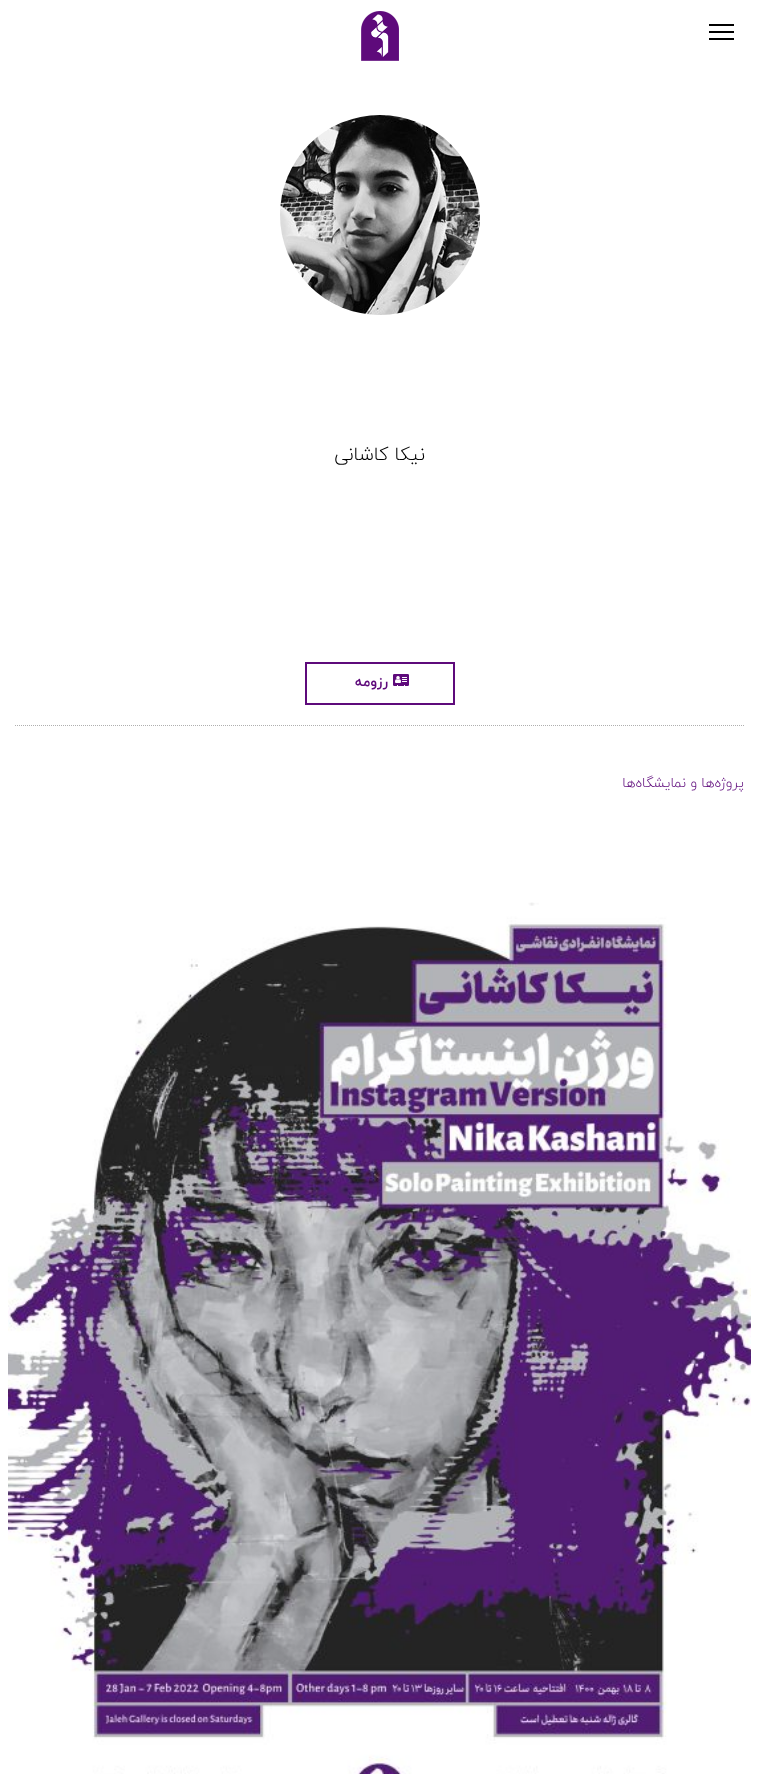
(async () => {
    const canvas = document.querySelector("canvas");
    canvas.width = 759;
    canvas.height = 1774;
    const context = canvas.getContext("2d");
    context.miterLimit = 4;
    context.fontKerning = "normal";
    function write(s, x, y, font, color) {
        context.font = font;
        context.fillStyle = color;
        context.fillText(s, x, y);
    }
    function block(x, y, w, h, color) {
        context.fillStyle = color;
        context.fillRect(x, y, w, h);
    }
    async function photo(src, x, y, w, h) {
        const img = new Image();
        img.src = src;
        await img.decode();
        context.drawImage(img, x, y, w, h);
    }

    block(0, 0, 759, 1774, "rgb(255, 255, 255)");
    block(709, 31, 25, 2, "rgb(0, 0, 0)");
    block(709, 24, 25, 2, "rgb(0, 0, 0)");
    block(709, 38, 25, 2, "rgb(0, 0, 0)");
    await photo("media/1.png", 361, 11, 38, 50);
    await photo("media/2.png", 280, 115, 200, 200);
    context.direction = "rtl";
    write("نیکا کاشانی", 425, 460, "300 19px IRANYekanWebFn", "rgb(0, 0, 0)");
    context.strokeStyle = "rgb(94, 10, 123)";
    context.lineWidth = 2;
    context.strokeRect(306, 663, 148, 41);
    await photo("media/3.png", 393, 674, 16, 12);
    write("رزومه", 388, 686, "bold 14px IRANYekanWebFn", "rgb(94, 10, 123)");
    context.beginPath();
    context.moveTo(15, 725.5);
    context.lineTo(744, 725.5);
    context.strokeStyle = "rgb(175, 175, 175)";
    context.lineWidth = 1;
    context.setLineDash([1, 1]);
    context.stroke();
    write("پروژه‌ها و نمایشگاه‌ها", 744, 787, "300 14px IRANYekanWebFn", "rgb(94, 10, 123)");
    await photo("media/4.png", 8, 902, 743, 872);
})();
